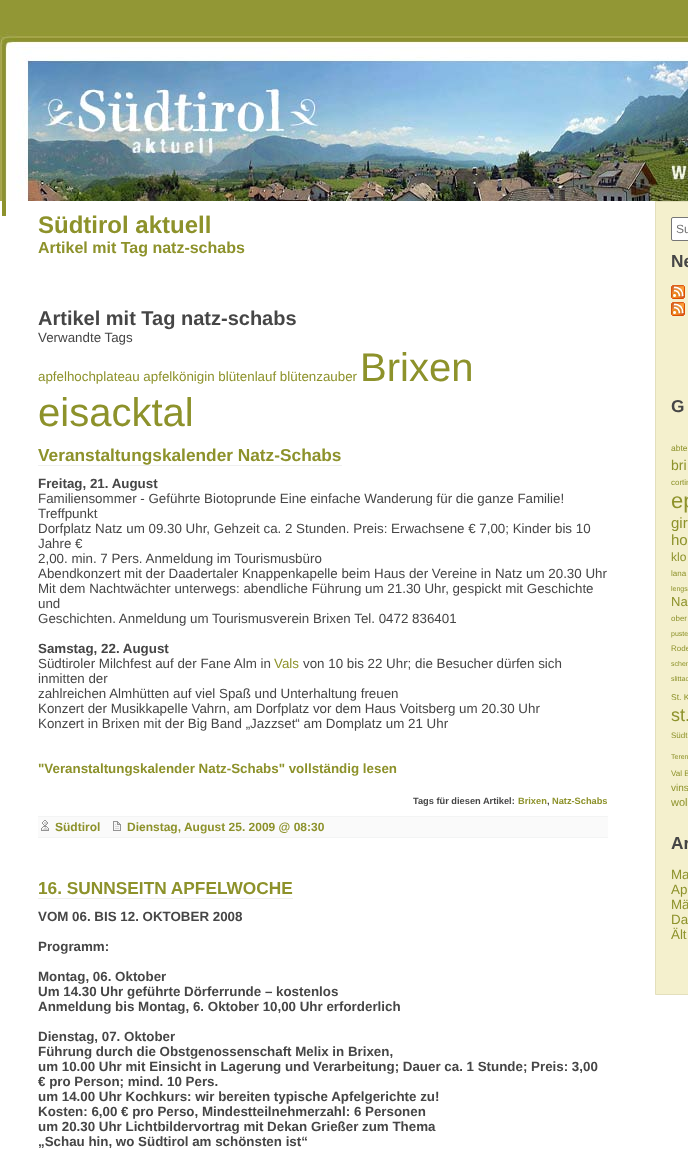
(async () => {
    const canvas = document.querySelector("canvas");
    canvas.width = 688;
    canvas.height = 1155;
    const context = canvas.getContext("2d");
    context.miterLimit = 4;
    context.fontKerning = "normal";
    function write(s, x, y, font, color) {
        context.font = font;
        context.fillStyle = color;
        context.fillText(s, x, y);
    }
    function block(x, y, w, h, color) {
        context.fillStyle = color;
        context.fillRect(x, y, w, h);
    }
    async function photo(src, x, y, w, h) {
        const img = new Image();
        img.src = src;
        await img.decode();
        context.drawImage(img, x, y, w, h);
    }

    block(0, 0, 688, 1155, "rgb(255, 255, 255)");
    block(0, 0, 688, 32, "rgb(146, 151, 53)");
    await photo("media/1.png", 0, 32, 688, 169);
    block(2, 201, 4, 15, "rgb(141, 146, 44)");
    write("Südtirol aktuell", 38, 233, "bold 24px Liberation Sans", "rgb(141, 146, 43)");
    write("Artikel mit Tag natz-schabs", 38, 253, "bold 16px Liberation Sans", "rgb(141, 146, 43)");
    write("Artikel mit Tag natz-schabs", 38, 325, "bold 20px Liberation Sans", "rgb(70, 70, 70)");
    write("Verwandte Tags", 38, 342, "13.35px Liberation Sans", "rgb(70, 70, 70)");
    write("apfelhochplateau apfelkönigin blütenlauf blütenzauber", 38, 381, "13.35px Liberation Sans", "rgb(141, 146, 43)");
    write("Brixen", 360, 381, "40px Liberation Sans", "rgb(141, 146, 43)");
    write("eisacktal", 38, 426, "40px Liberation Sans", "rgb(141, 146, 43)");
    write("Veranstaltungskalender Natz-Schabs", 38, 461, "bold 17.3px Liberation Sans", "rgb(141, 146, 43)");
    block(38, 465, 304, 1, "rgb(239, 239, 239)");
    write("Freitag, 21. August", 38, 488, "bold 13.35px Liberation Sans", "rgb(70, 70, 70)");
    write("Familiensommer - Geführte Biotoprunde Eine einfache Wanderung für die ganze Familie!", 38, 503, "13.35px Liberation Sans", "rgb(70, 70, 70)");
    write("Treffpunkt", 38, 518, "13.35px Liberation Sans", "rgb(70, 70, 70)");
    write("Dorfplatz Natz um 09.30 Uhr, Gehzeit ca. 2 Stunden. Preis: Erwachsene € 7,00; Kinder bis 10", 38, 533, "13.35px Liberation Sans", "rgb(70, 70, 70)");
    write("Jahre €", 38, 548, "13.35px Liberation Sans", "rgb(70, 70, 70)");
    write("2,00. min. 7 Pers. Anmeldung im Tourismusbüro", 38, 563, "13.35px Liberation Sans", "rgb(70, 70, 70)");
    write("Abendkonzert mit der Daadertaler Knappenkapelle beim Haus der Vereine in Natz um 20.30 Uhr", 38, 578, "13.35px Liberation Sans", "rgb(70, 70, 70)");
    write("Mit dem Nachtwächter unterwegs: abendliche Führung um 21.30 Uhr, gespickt mit Geschichte", 38, 593, "13.35px Liberation Sans", "rgb(70, 70, 70)");
    write("und", 38, 608, "13.35px Liberation Sans", "rgb(70, 70, 70)");
    write("Geschichten. Anmeldung um Tourismusverein Brixen Tel. 0472 836401", 38, 623, "13.35px Liberation Sans", "rgb(70, 70, 70)");
    write("Samstag, 22. August", 38, 653, "bold 13.35px Liberation Sans", "rgb(70, 70, 70)");
    write("Südtiroler Milchfest auf der Fane Alm in", 38, 668, "13.35px Liberation Sans", "rgb(70, 70, 70)");
    write("Vals", 274, 668, "13.35px Liberation Sans", "rgb(141, 146, 43)");
    write("von 10 bis 22 Uhr; die Besucher dürfen sich", 303, 668, "13.35px Liberation Sans", "rgb(70, 70, 70)");
    write("inmitten der", 38, 683, "13.35px Liberation Sans", "rgb(70, 70, 70)");
    write("zahlreichen Almhütten auf viel Spaß und Unterhaltung freuen", 38, 698, "13.35px Liberation Sans", "rgb(70, 70, 70)");
    write("Konzert der Musikkapelle Vahrn, am Dorfplatz vor dem Haus Voitsberg um 20.30 Uhr", 38, 713, "13.35px Liberation Sans", "rgb(70, 70, 70)");
    write("Konzert in Brixen mit der Big Band „Jazzset“ am Domplatz um 21 Uhr", 38, 728, "13.35px Liberation Sans", "rgb(70, 70, 70)");
    write("\"Veranstaltungskalender Natz-Schabs\" vollständig lesen", 38, 773, "bold 13.35px Liberation Sans", "rgb(141, 146, 43)");
    write("Tags für diesen Artikel:", 413, 804, "bold 9.25px Liberation Sans", "rgb(70, 70, 70)");
    write("Brixen", 518, 804, "bold 9.25px Liberation Sans", "rgb(141, 146, 43)");
    write(",", 547, 804, "bold 9.25px Liberation Sans", "rgb(70, 70, 70)");
    write("Natz-Schabs", 552, 804, "bold 9.25px Liberation Sans", "rgb(141, 146, 43)");
    block(38, 817, 570, 20, "rgb(250, 250, 250)");
    block(38, 816, 570, 1, "rgb(243, 244, 244)");
    block(38, 837, 570, 1, "rgb(243, 244, 244)");
    await photo("media/2.png", 41, 820, 8, 11);
    write("Südtirol", 55, 831, "bold 12px Liberation Sans", "rgb(141, 146, 43)");
    await photo("media/3.png", 113, 821, 8, 10);
    write("Dienstag, August 25. 2009 @ 08:30", 127, 831, "bold 12px Liberation Sans", "rgb(141, 146, 43)");
    write("16. SUNNSEITN APFELWOCHE", 38, 894, "bold 17.3px Liberation Sans", "rgb(141, 146, 43)");
    block(38, 898, 255, 1, "rgb(239, 239, 239)");
    write("VOM 06. BIS 12. OKTOBER 2008", 38, 921, "bold 13.35px Liberation Sans", "rgb(70, 70, 70)");
    write("Programm:", 38, 951, "bold 13.35px Liberation Sans", "rgb(70, 70, 70)");
    write("Montag, 06. Oktober", 38, 981, "bold 13.35px Liberation Sans", "rgb(70, 70, 70)");
    write("Um 14.30 Uhr geführte Dörferrunde – kostenlos", 38, 996, "bold 13.35px Liberation Sans", "rgb(70, 70, 70)");
    write("Anmeldung bis Montag, 6. Oktober 10,00 Uhr erforderlich", 38, 1011, "bold 13.35px Liberation Sans", "rgb(70, 70, 70)");
    write("Dienstag, 07. Oktober", 38, 1041, "bold 13.35px Liberation Sans", "rgb(70, 70, 70)");
    write("Führung durch die Obstgenossenschaft Melix in Brixen,", 38, 1056, "bold 13.35px Liberation Sans", "rgb(70, 70, 70)");
    write("um 10.00 Uhr mit Einsicht in Lagerung und Verarbeitung; Dauer ca. 1 Stunde; Preis: 3,00", 38, 1071, "bold 13.35px Liberation Sans", "rgb(70, 70, 70)");
    write("€ pro Person; mind. 10 Pers.", 38, 1086, "bold 13.35px Liberation Sans", "rgb(70, 70, 70)");
    write("um 14.00 Uhr Kochkurs: wir bereiten typische Apfelgerichte zu!", 38, 1101, "bold 13.35px Liberation Sans", "rgb(70, 70, 70)");
    write("Kosten: 6,00 € pro Perso, Mindestteilnehmerzahl: 6 Personen", 38, 1116, "bold 13.35px Liberation Sans", "rgb(70, 70, 70)");
    write("um 20.30 Uhr Lichtbildervortrag mit Dekan Grießer zum Thema", 38, 1131, "bold 13.35px Liberation Sans", "rgb(70, 70, 70)");
    write("„Schau hin, wo Südtirol am schönsten ist“", 38, 1146, "bold 13.35px Liberation Sans", "rgb(70, 70, 70)");
    context.fillStyle = "rgb(244, 240, 205)";
    context.beginPath();
    context.rect(655.5, 201.5, 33, 793);
    context.fill();
    context.strokeStyle = "rgb(227, 223, 188)";
    context.stroke();
    context.fillStyle = "rgb(255, 255, 255)";
    context.beginPath();
    context.roundRect(671.5, 217.5, 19, 23, 1.5);
    context.fill();
    context.strokeStyle = "rgb(118, 118, 118)";
    context.stroke();
    write("Su", 676, 233, "12px Liberation Sans", "rgb(113, 113, 113)");
    write("Ne", 671, 267, "bold 17.3px Liberation Sans", "rgb(70, 70, 70)");
    await photo("media/4.png", 671, 285, 14, 14);
    await photo("media/4.png", 671, 302, 14, 14);
    write("G", 671, 412, "bold 17.3px Liberation Sans", "rgb(70, 70, 70)");
    write("abte", 671, 451, "8.5px Liberation Sans", "rgb(141, 146, 43)");
    write("bri", 671, 470, "14px Liberation Sans", "rgb(141, 146, 43)");
    write("cortin", 671, 485, "8px Liberation Sans", "rgb(141, 146, 43)");
    write("ep", 671, 508, "22px Liberation Sans", "rgb(141, 146, 43)");
    write("gir", 671, 528, "15px Liberation Sans", "rgb(141, 146, 43)");
    write("ho", 671, 545, "15px Liberation Sans", "rgb(141, 146, 43)");
    write("klo", 671, 561, "12px Liberation Sans", "rgb(141, 146, 43)");
    write("lana", 671, 576, "8px Liberation Sans", "rgb(141, 146, 43)");
    write("lengs", 671, 591, "7px Liberation Sans", "rgb(141, 146, 43)");
    write("Na", 671, 606, "13px Liberation Sans", "rgb(141, 146, 43)");
    write("ober", 671, 621, "8px Liberation Sans", "rgb(141, 146, 43)");
    write("puste", 671, 636, "7px Liberation Sans", "rgb(141, 146, 43)");
    write("Rode", 671, 651, "8px Liberation Sans", "rgb(141, 146, 43)");
    write("schen", 671, 666, "7px Liberation Sans", "rgb(141, 146, 43)");
    write("slittad", 671, 681, "7px Liberation Sans", "rgb(141, 146, 43)");
    write("St. K", 671, 700, "8.5px Liberation Sans", "rgb(141, 146, 43)");
    write("st.", 671, 721, "18px Liberation Sans", "rgb(141, 146, 43)");
    write("Südt", 671, 738, "8px Liberation Sans", "rgb(141, 146, 43)");
    write("Teren", 671, 759, "7px Liberation Sans", "rgb(141, 146, 43)");
    write("Val B", 671, 776, "8px Liberation Sans", "rgb(141, 146, 43)");
    write("vins", 671, 791, "10px Liberation Sans", "rgb(141, 146, 43)");
    write("wol", 671, 806, "11px Liberation Sans", "rgb(141, 146, 43)");
    write("Ar", 671, 849, "bold 17.3px Liberation Sans", "rgb(70, 70, 70)");
    write("Ma", 671, 879, "13.35px Liberation Sans", "rgb(141, 146, 43)");
    write("Ap", 671, 894, "13.35px Liberation Sans", "rgb(141, 146, 43)");
    write("Mä", 671, 909, "13.35px Liberation Sans", "rgb(141, 146, 43)");
    write("Da", 671, 924, "13.35px Liberation Sans", "rgb(141, 146, 43)");
    write("Ält", 671, 939, "13.35px Liberation Sans", "rgb(141, 146, 43)");
})();
